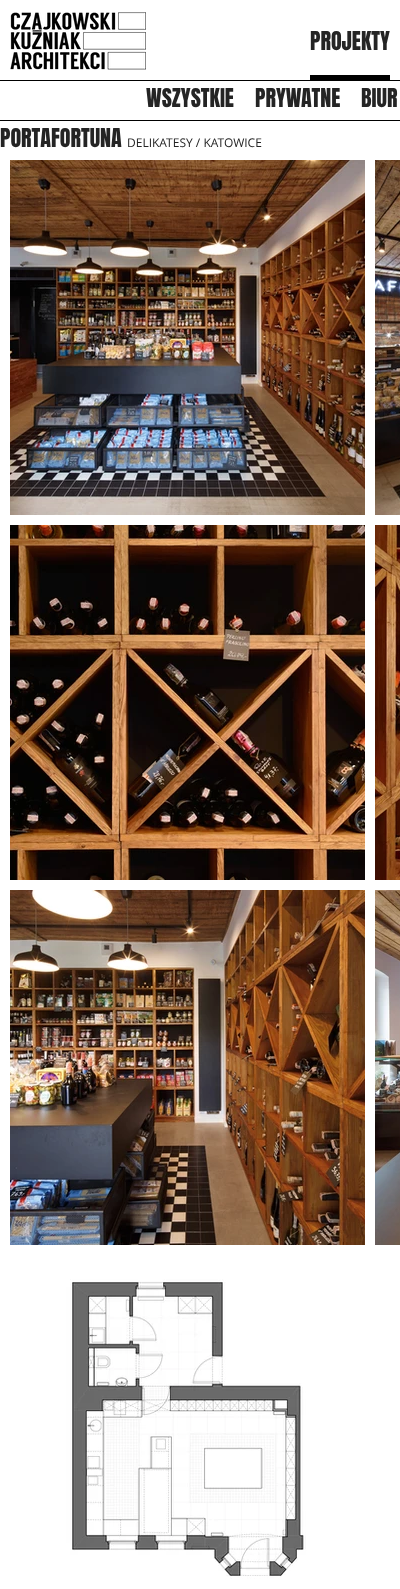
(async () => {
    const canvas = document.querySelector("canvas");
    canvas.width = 400;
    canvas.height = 1589;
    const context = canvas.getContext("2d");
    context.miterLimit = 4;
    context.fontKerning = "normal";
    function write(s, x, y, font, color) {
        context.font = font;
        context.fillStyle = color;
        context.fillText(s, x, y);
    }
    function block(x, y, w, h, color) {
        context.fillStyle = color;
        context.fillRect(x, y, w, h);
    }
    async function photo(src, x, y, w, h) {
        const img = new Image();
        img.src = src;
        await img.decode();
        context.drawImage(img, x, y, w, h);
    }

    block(0, 0, 400, 1589, "rgb(255, 255, 255)");
    await photo("media/1.png", 10, 12, 136, 58);
    write("PROJEKTY", 310, 50, "22px Anton", "rgb(36, 36, 36)");
    block(0, 80, 400, 1, "rgb(0, 0, 0)");
    block(310, 75, 80, 5, "rgb(0, 0, 0)");
    write("WSZYSTKIE", 146, 107, "22px Anton", "rgb(36, 36, 36)");
    write("PRYWATNE", 255, 107, "22px Anton", "rgb(36, 36, 36)");
    write("BIUR", 361, 107, "22px Anton", "rgb(36, 36, 36)");
    block(0, 120, 400, 1, "rgb(0, 0, 0)");
    write("PORTAFORTUNA", 0, 147, "22px Anton", "rgb(36, 36, 36)");
    write("DELIKATESY / KATOWICE", 127, 147, "12px Open Sans", "rgb(36, 36, 36)");
    await photo("media/2.png", 10, 160, 355, 355);
    await photo("media/3.png", 375, 160, 25, 355);
    await photo("media/4.png", 10, 525, 355, 355);
    await photo("media/5.png", 375, 525, 25, 355);
    await photo("media/6.png", 10, 890, 355, 355);
    await photo("media/7.png", 375, 890, 25, 355);
    await photo("media/8.png", 10, 1255, 355, 334);
})();
